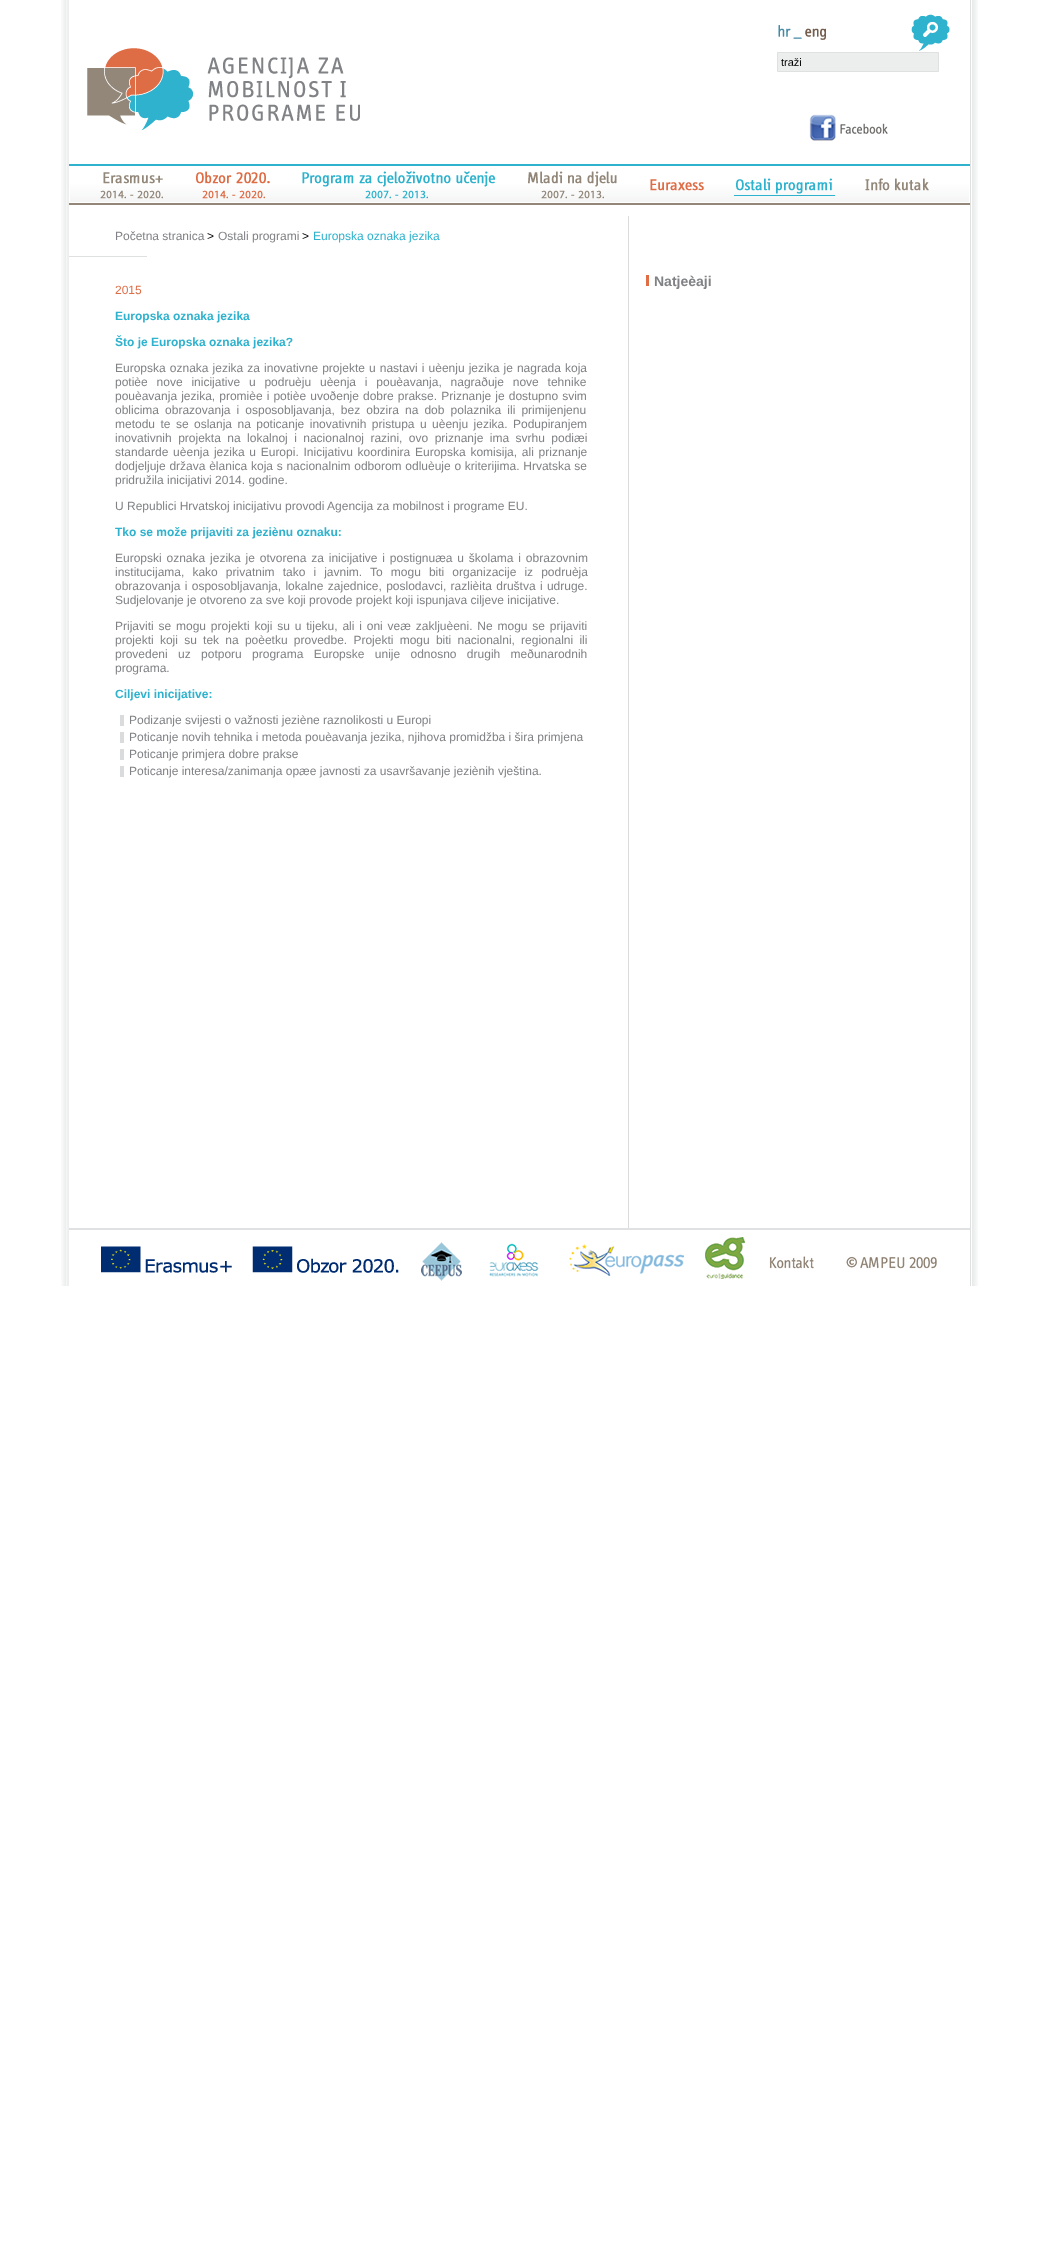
(async () => {
    const canvas = document.querySelector("canvas");
    canvas.width = 1038;
    canvas.height = 2247;
    const context = canvas.getContext("2d");
    context.miterLimit = 4;
    context.fontKerning = "normal";
    function write(s, x, y, font, color) {
        context.font = font;
        context.fillStyle = color;
        context.fillText(s, x, y);
    }
    function block(x, y, w, h, color) {
        context.fillStyle = color;
        context.fillRect(x, y, w, h);
    }
    async function photo(src, x, y, w, h) {
        const img = new Image();
        img.src = src;
        await img.decode();
        context.drawImage(img, x, y, w, h);
    }

    block(0, 0, 1038, 2247, "rgb(255, 255, 255)");
    await photo("media/1.png", 61, 0, 8, 1286);
    await photo("media/2.png", 87, 48, 273, 83);
    await photo("media/3.png", 778, 25, 24, 14);
    await photo("media/4.png", 805, 28, 21, 12);
    await photo("media/5.png", 911, 14, 39, 37);
    context.fillStyle = "rgb(236, 237, 237)";
    context.beginPath();
    context.rect(777.5, 52.5, 161, 19);
    context.fill();
    context.strokeStyle = "rgb(223, 224, 224)";
    context.stroke();
    write("traži", 781, 66, "11px Liberation Sans", "rgb(0, 0, 0)");
    await photo("media/6.png", 809, 114, 79, 27);
    await photo("media/7.png", 69, 164, 17, 41);
    await photo("media/8.png", 86, 164, 870, 41);
    await photo("media/9.png", 100, 172, 63, 27);
    await photo("media/10.png", 196, 171, 74, 28);
    await photo("media/11.png", 302, 171, 193, 28);
    await photo("media/12.png", 528, 171, 89, 28);
    await photo("media/13.png", 650, 179, 54, 12);
    await photo("media/14.png", 734, 178, 101, 18);
    await photo("media/15.png", 865, 178, 64, 13);
    await photo("media/16.png", 956, 164, 14, 41);
    write("Početna stranica", 115, 240, "12px Liberation Sans", "rgb(128, 130, 133)");
    write(">", 207, 240, "12px Liberation Sans", "rgb(0, 0, 0)");
    write("Ostali programi", 218, 240, "12px Liberation Sans", "rgb(128, 130, 133)");
    write(">", 302, 240, "12px Liberation Sans", "rgb(0, 0, 0)");
    write("Europska oznaka jezika", 313, 240, "12px Liberation Sans", "rgb(47, 178, 205)");
    block(69, 256, 78, 1, "rgb(223, 224, 224)");
    write("2015", 115, 294, "12px Liberation Sans", "rgb(222, 109, 70)");
    write("Europska oznaka jezika", 115, 320, "bold 12px Liberation Sans", "rgb(47, 178, 205)");
    write("Što je Europska oznaka jezika?", 115, 346, "bold 12px Liberation Sans", "rgb(47, 178, 205)");
    context.wordSpacing = "0.75px";
    write("Europska oznaka jezika za inovativne projekte u nastavi i uèenju jezika je nagrada koja", 115, 372, "12px Liberation Sans", "rgb(128, 130, 133)");
    context.wordSpacing = "5.5px";
    write("potièe nove inicijative u podruèju uèenja i pouèavanja, nagraðuje nove tehnike", 115, 386, "12px Liberation Sans", "rgb(128, 130, 133)");
    context.wordSpacing = "0.75px";
    write("pouèavanja jezika, promièe i potièe uvoðenje dobre prakse. Priznanje je dostupno svim", 115, 400, "12px Liberation Sans", "rgb(128, 130, 133)");
    context.wordSpacing = "2.75px";
    write("oblicima obrazovanja i osposobljavanja, bez obzira na dob polaznika ili primijenjenu", 115, 414, "12px Liberation Sans", "rgb(128, 130, 133)");
    context.wordSpacing = "2.1px";
    write("metodu te se oslanja na poticanje inovativnih pristupa u uèenju jezika. Podupiranjem", 115, 428, "12px Liberation Sans", "rgb(128, 130, 133)");
    context.wordSpacing = "3.1px";
    write("inovativnih projekta na lokalnoj i nacionalnoj razini, ovo priznanje ima svrhu podiæi", 115, 442, "12px Liberation Sans", "rgb(128, 130, 133)");
    context.wordSpacing = "1.4px";
    write("standarde uèenja jezika u Europi. Inicijativu koordinira Europska komisija, ali priznanje", 115, 456, "12px Liberation Sans", "rgb(128, 130, 133)");
    context.wordSpacing = "0.4px";
    write("dodjeljuje država èlanica koja s nacionalnim odborom odluèuje o kriterijima. Hrvatska se", 115, 470, "12px Liberation Sans", "rgb(128, 130, 133)");
    context.wordSpacing = "0px";
    write("pridružila inicijativi 2014. godine.", 115, 484, "12px Liberation Sans", "rgb(128, 130, 133)");
    write("U Republici Hrvatskoj inicijativu provodi Agencija za mobilnost i programe EU.", 115, 510, "12px Liberation Sans", "rgb(128, 130, 133)");
    write("Tko se može prijaviti za jeziènu oznaku:", 115, 536, "bold 12px Liberation Sans", "rgb(47, 178, 205)");
    context.wordSpacing = "1.5px";
    write("Europski oznaka jezika je otvorena za inicijative i postignuæa u školama i obrazovnim", 115, 562, "12px Liberation Sans", "rgb(128, 130, 133)");
    context.wordSpacing = "4.75px";
    write("institucijama, kako privatnim tako i javnim. To mogu biti organizacije iz podruèja", 115, 576, "12px Liberation Sans", "rgb(128, 130, 133)");
    context.wordSpacing = "1px";
    write("obrazovanja i osposobljavanja, lokalne zajednice, poslodavci, razlièita društva i udruge.", 115, 590, "12px Liberation Sans", "rgb(128, 130, 133)");
    context.wordSpacing = "0px";
    write("Sudjelovanje je otvoreno za sve koji provode projekt koji ispunjava ciljeve inicijative.", 115, 604, "12px Liberation Sans", "rgb(128, 130, 133)");
    context.wordSpacing = "1.5px";
    write("Prijaviti se mogu projekti koji su u tijeku, ali i oni veæ zakljuèeni. Ne mogu se prijaviti", 115, 630, "12px Liberation Sans", "rgb(128, 130, 133)");
    context.wordSpacing = "2.9px";
    write("projekti koji su tek na poèetku provedbe. Projekti mogu biti nacionalni, regionalni ili", 115, 644, "12px Liberation Sans", "rgb(128, 130, 133)");
    context.wordSpacing = "7px";
    write("provedeni uz potporu programa Europske unije odnosno drugih meðunarodnih", 115, 658, "12px Liberation Sans", "rgb(128, 130, 133)");
    context.wordSpacing = "0px";
    write("programa.", 115, 672, "12px Liberation Sans", "rgb(128, 130, 133)");
    write("Ciljevi inicijative:", 115, 698, "bold 12px Liberation Sans", "rgb(47, 178, 205)");
    block(120, 715, 4, 11, "rgb(217, 219, 220)");
    write("Podizanje svijesti o važnosti jeziène raznolikosti u Europi", 129, 724, "12px Liberation Sans", "rgb(128, 130, 133)");
    block(120, 732, 4, 11, "rgb(217, 219, 220)");
    write("Poticanje novih tehnika i metoda pouèavanja jezika, njihova promidžba i šira primjena", 129, 741, "12px Liberation Sans", "rgb(128, 130, 133)");
    block(120, 749, 4, 11, "rgb(217, 219, 220)");
    write("Poticanje primjera dobre prakse", 129, 758, "12px Liberation Sans", "rgb(128, 130, 133)");
    block(120, 766, 4, 11, "rgb(217, 219, 220)");
    write("Poticanje interesa/zanimanja opæe javnosti za usavršavanje jeziènih vještina.", 129, 775, "12px Liberation Sans", "rgb(128, 130, 133)");
    block(628, 216, 1, 1012, "rgb(217, 219, 220)");
    block(646, 275, 3, 11, "rgb(223, 110, 70)");
    write("Natjeèaji", 654, 286, "bold 14px Liberation Sans", "rgb(128, 130, 133)");
    block(69, 1228, 901, 2, "rgb(224, 225, 226)");
    await photo("media/17.png", 101, 1246, 131, 27);
    await photo("media/18.png", 252, 1246, 147, 27);
    await photo("media/19.png", 421, 1242, 41, 39);
    await photo("media/20.png", 489, 1243, 50, 34);
    await photo("media/21.png", 569, 1244, 115, 32);
    await photo("media/22.png", 705, 1237, 40, 42);
    await photo("media/23.png", 769, 1256, 45, 13);
    await photo("media/24.png", 846, 1256, 91, 13);
    await photo("media/25.png", 970, 0, 8, 1286);
})();
